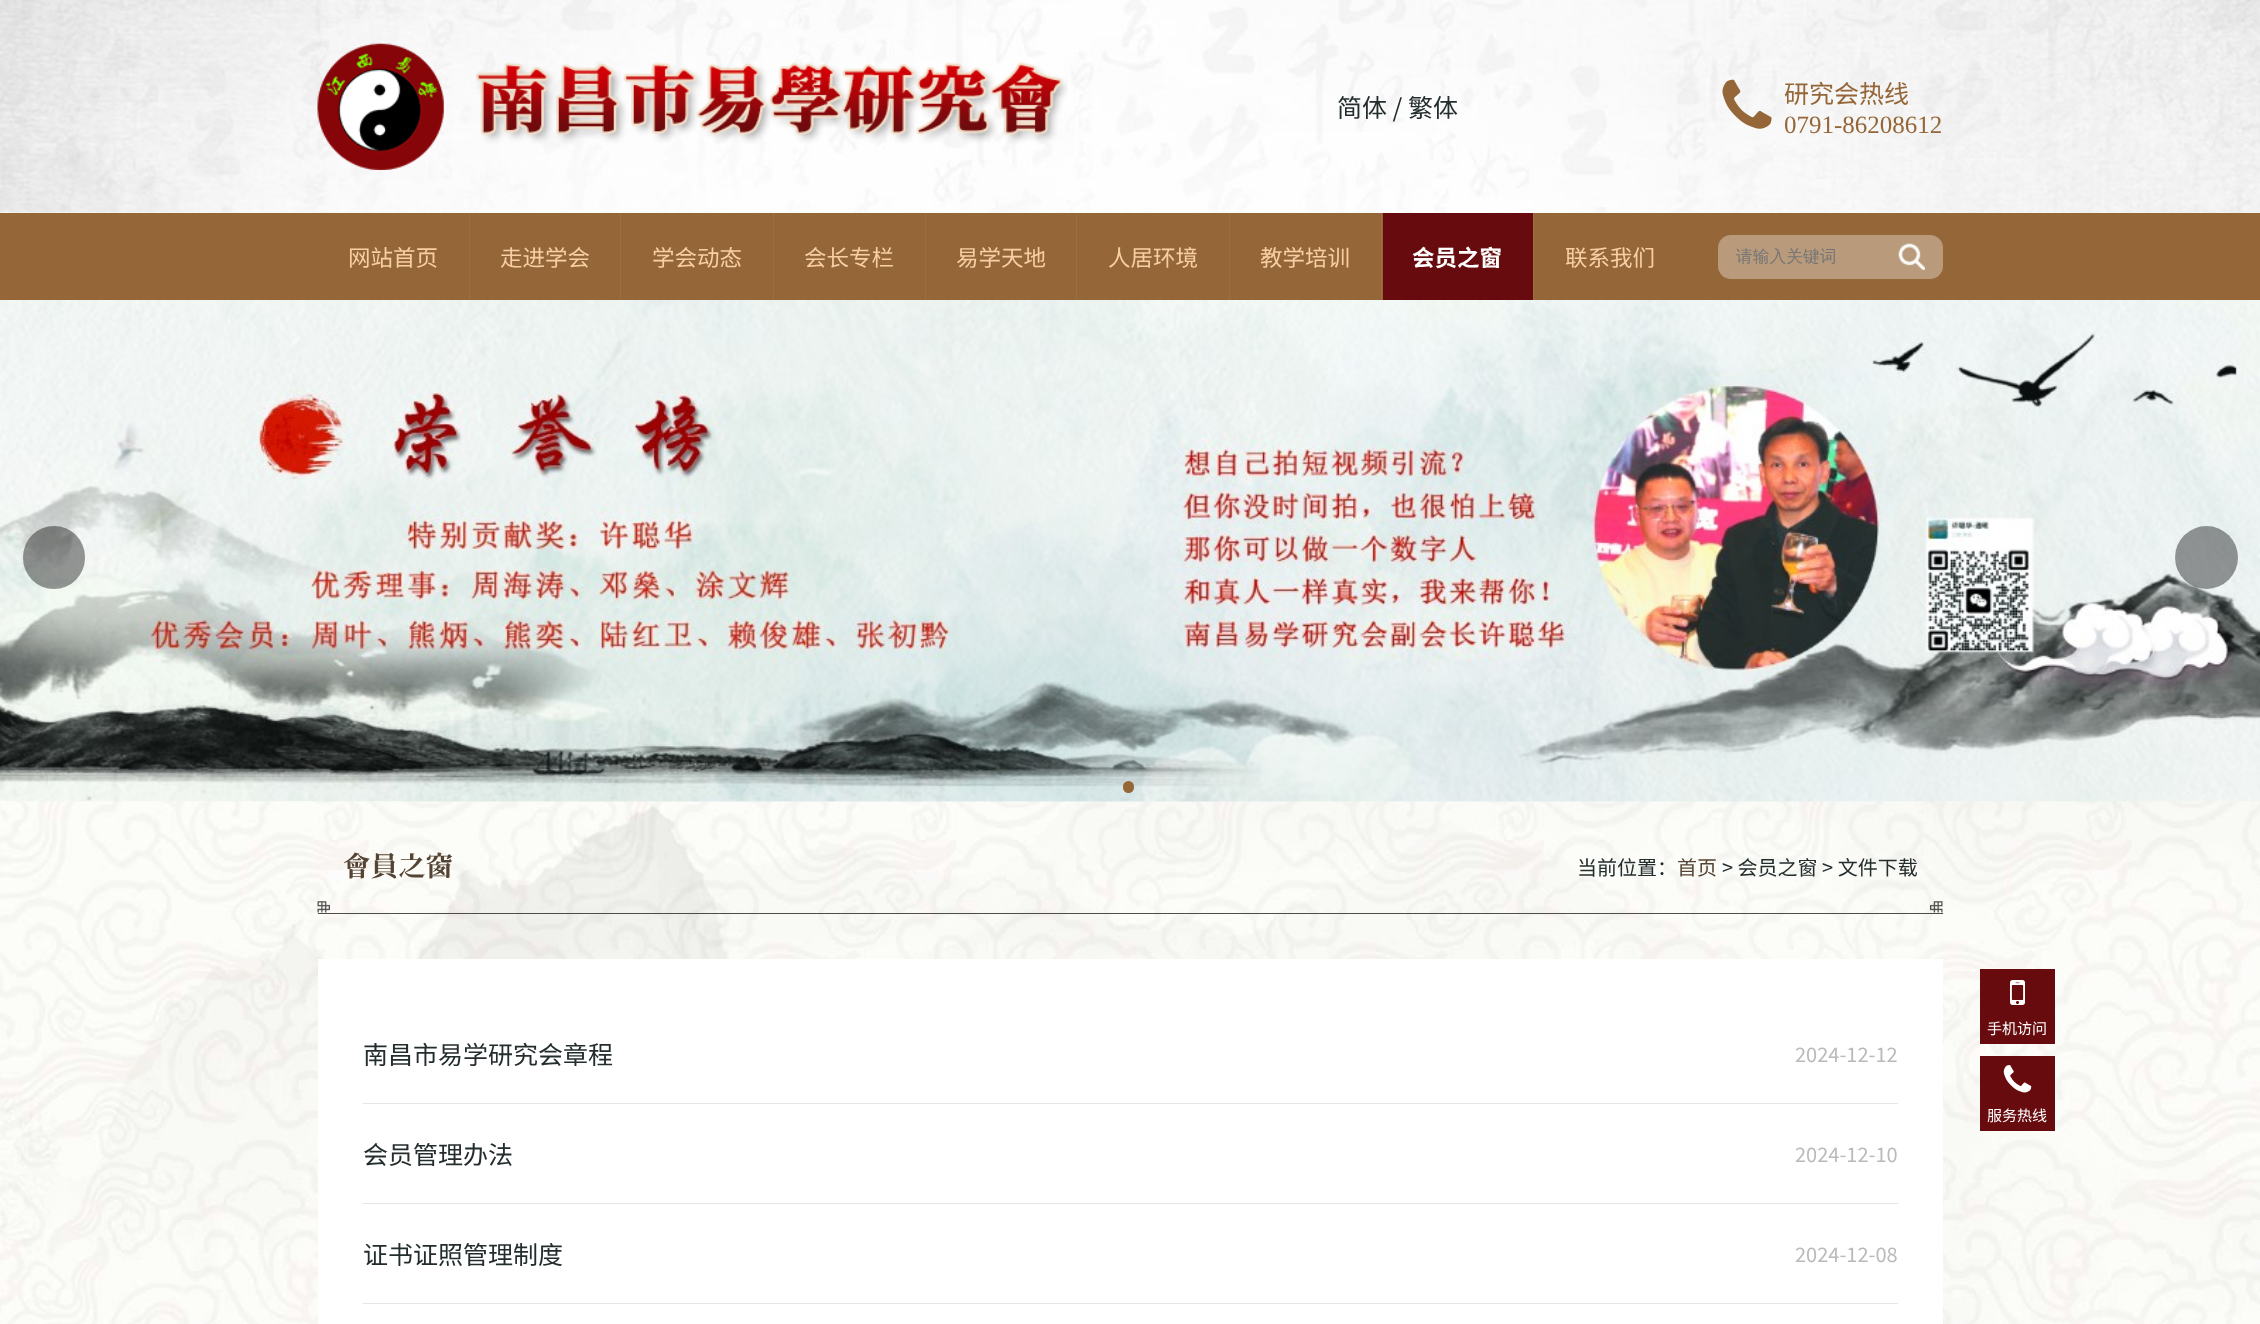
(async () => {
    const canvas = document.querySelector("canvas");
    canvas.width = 2260;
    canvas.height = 1324;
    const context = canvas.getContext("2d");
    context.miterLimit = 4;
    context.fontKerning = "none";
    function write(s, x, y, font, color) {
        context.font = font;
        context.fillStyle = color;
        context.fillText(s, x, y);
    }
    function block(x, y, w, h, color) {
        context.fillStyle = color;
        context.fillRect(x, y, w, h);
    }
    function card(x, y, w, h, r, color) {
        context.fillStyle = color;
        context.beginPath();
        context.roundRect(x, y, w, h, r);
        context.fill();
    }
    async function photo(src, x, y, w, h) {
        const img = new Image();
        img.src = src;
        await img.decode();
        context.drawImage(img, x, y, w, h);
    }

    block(0, 0, 2260, 1324, "rgb(255, 255, 255)");
    await photo("media/1.png", 0, 212, 2260, 1112);
    await photo("media/2.png", 0, 0, 2260, 213);
    await photo("media/3.png", 317, 43, 751, 127);
    write("简体 / 繁体", 1337, 117, "25px Noto Sans CJK SC", "rgb(36, 45, 46)");
    await photo("media/4.png", 1722, 79, 50, 50);
    write("研究会热线", 1784, 103, "25px Noto Sans CJK SC", "rgb(149, 103, 56)");
    write("0791-86208612", 1784, 133, "25px Liberation Serif", "rgb(149, 103, 56)");
    block(0, 213, 2260, 87, "rgb(149, 103, 56)");
    block(469, 213, 1, 87, "rgb(154, 111, 66)");
    write("网站首页", 348, 266, "22.5px Noto Sans CJK SC", "rgb(248, 207, 165)");
    block(620, 213, 1, 87, "rgb(154, 111, 66)");
    write("走进学会", 500, 266, "22.5px Noto Sans CJK SC", "rgb(248, 207, 165)");
    block(773, 213, 1, 87, "rgb(154, 111, 66)");
    write("学会动态", 652, 266, "22.5px Noto Sans CJK SC", "rgb(248, 207, 165)");
    block(925, 213, 1, 87, "rgb(154, 111, 66)");
    write("会长专栏", 804, 266, "22.5px Noto Sans CJK SC", "rgb(248, 207, 165)");
    block(1076, 213, 1, 87, "rgb(154, 111, 66)");
    write("易学天地", 956, 266, "22.5px Noto Sans CJK SC", "rgb(248, 207, 165)");
    block(1229, 213, 1, 87, "rgb(154, 111, 66)");
    write("人居环境", 1108, 266, "22.5px Noto Sans CJK SC", "rgb(248, 207, 165)");
    block(1381, 213, 1, 87, "rgb(154, 111, 66)");
    write("教学培训", 1260, 266, "22.5px Noto Sans CJK SC", "rgb(248, 207, 165)");
    block(1533, 213, 1, 87, "rgb(154, 111, 66)");
    block(1383, 213, 150, 87, "rgb(104, 11, 14)");
    write("会员之窗", 1412, 266, "bold 22.5px Noto Sans CJK SC", "rgb(255, 255, 255)");
    write("联系我们", 1565, 266, "22.5px Noto Sans CJK SC", "rgb(248, 207, 165)");
    card(1718, 235, 225, 44, 13, "rgb(185, 155, 124)");
    write("请输入关键词", 1736, 262, "500 16.75px WenQuanYi Zen Hei", "rgb(117, 117, 117)");
    await photo("media/5.png", 1898, 243, 27, 27);
    await photo("media/6.png", 0, 300, 2260, 502);
    await photo("media/7.png", 399, 801, 1412, 1);
    card(23, 526, 62, 63, 31, "rgba(0, 0, 0, 0.4)");
    context.beginPath();
    context.arc(2206.5, 557.5, 31.5, 0, Math.PI * 2);
    context.fill();
    card(1123, 781, 11, 12, 5.5, "rgb(149, 103, 56)");
    await photo("media/8.png", 317, 901, 1626, 12);
    block(318, 913, 1625, 1, "rgb(76, 76, 76)");
    write("会员之窗", 343, 876, "bold 27.5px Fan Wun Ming", "rgb(85, 68, 51)");
    write("当前位置：", 1577, 875, "20px Noto Sans CJK SC", "rgb(36, 45, 46)");
    write("首页", 1677, 875, "20px Noto Sans CJK SC", "rgb(85, 68, 51)");
    write("> 会员之窗 > 文件下载", 1722, 875, "20px Noto Sans CJK SC", "rgb(36, 45, 46)");
    block(318, 959, 1625, 365, "rgb(255, 255, 255)");
    block(363, 1103, 1535, 1, "rgb(230, 230, 230)");
    write("南昌市易学研究会章程", 363, 1064, "25px Noto Sans CJK SC", "rgb(36, 45, 46)");
    write("2024-12-12", 1795, 1062, "20px Noto Sans CJK SC", "rgb(186, 186, 186)");
    block(363, 1203, 1535, 1, "rgb(230, 230, 230)");
    write("会员管理办法", 363, 1164, "25px Noto Sans CJK SC", "rgb(36, 45, 46)");
    write("2024-12-10", 1795, 1162, "20px Noto Sans CJK SC", "rgb(186, 186, 186)");
    block(363, 1303, 1535, 1, "rgb(230, 230, 230)");
    write("证书证照管理制度", 363, 1264, "25px Noto Sans CJK SC", "rgb(36, 45, 46)");
    write("2024-12-08", 1795, 1262, "20px Noto Sans CJK SC", "rgb(186, 186, 186)");
    block(1980, 969, 75, 75, "rgb(104, 11, 14)");
    await photo("media/9.png", 2010, 980, 15, 25);
    write("手机访问", 1987, 1034, "15px Noto Sans CJK SC", "rgb(255, 255, 255)");
    block(1980, 1056, 75, 75, "rgb(104, 11, 14)");
    await photo("media/10.png", 2003, 1065, 29, 28);
    write("服务热线", 1987, 1121, "15px Noto Sans CJK SC", "rgb(255, 255, 255)");
})();
